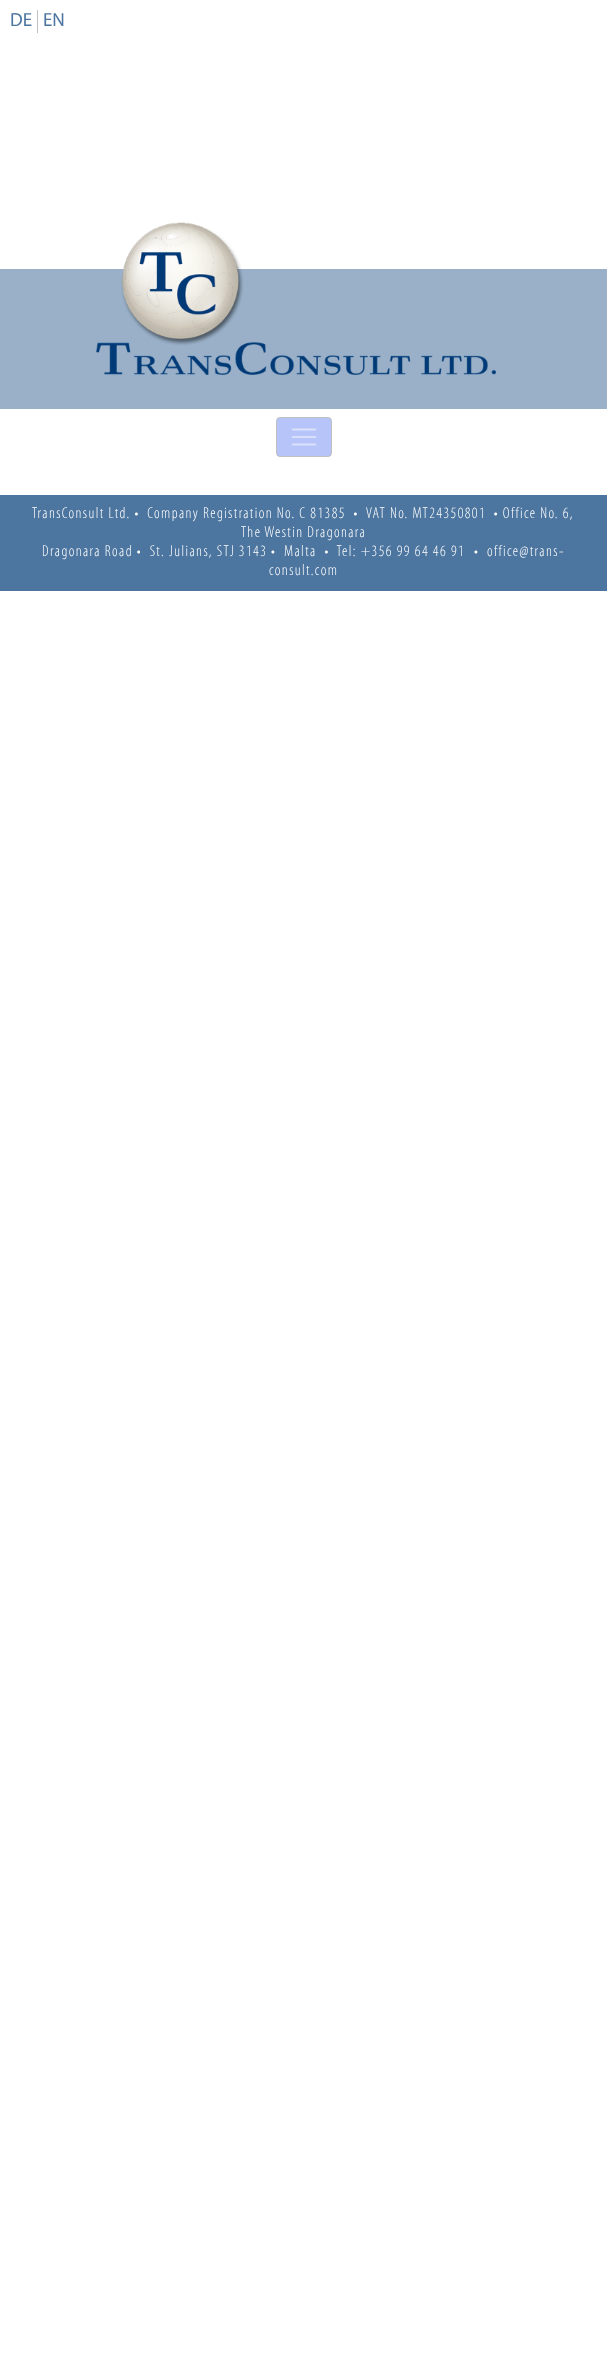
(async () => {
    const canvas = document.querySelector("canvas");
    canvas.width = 607;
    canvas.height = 2373;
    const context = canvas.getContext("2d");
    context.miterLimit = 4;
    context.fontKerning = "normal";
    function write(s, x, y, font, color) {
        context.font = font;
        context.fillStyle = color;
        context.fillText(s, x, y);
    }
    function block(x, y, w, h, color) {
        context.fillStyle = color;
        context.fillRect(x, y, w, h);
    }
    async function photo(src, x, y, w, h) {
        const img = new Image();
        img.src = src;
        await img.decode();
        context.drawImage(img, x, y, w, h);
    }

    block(0, 0, 607, 2373, "rgb(255, 255, 255)");
    block(37, 10, 1, 23, "rgb(192, 192, 192)");
    write("DE", 10, 26, "19px Myriad", "rgb(76, 117, 159)");
    write("EN", 43, 26, "19px Myriad", "rgb(76, 117, 159)");
    block(0, 269, 607, 140, "rgb(153, 176, 200)");
    await photo("media/1.png", 96, 222, 400, 153);
    context.fillStyle = "rgb(183, 196, 249)";
    context.beginPath();
    context.roundRect(276.5, 417.5, 55, 39, 3.5);
    context.fill();
    context.strokeStyle = "rgb(192, 192, 192)";
    context.stroke();
    await photo("media/2.png", 291, 428, 26, 18);
    block(0, 495, 607, 96, "rgb(76, 117, 159)");
    context.letterSpacing = "1.4px";
    write("TransConsult Ltd. •  Company Registration No. C 81385  •  VAT No. MT24350801  • Office No. 6,", 32, 518, "300 15.85px Myriad", "rgb(255, 255, 255)");
    write("The Westin Dragonara", 241, 537, "300 15.85px Myriad", "rgb(255, 255, 255)");
    write("Dragonara Road •  St. Julians, STJ 3143 •  Malta  •  Tel: +356 99 64 46 91", 42, 556, "300 15.85px Myriad", "rgb(255, 255, 255)");
    write("•", 474, 556, "300 15.85px Myriad", "rgb(255, 255, 255)");
    write("office@trans-", 487, 556, "300 15.85px Myriad", "rgb(255, 255, 255)");
    write("consult.com", 269, 575, "300 15.85px Myriad", "rgb(255, 255, 255)");
})();
